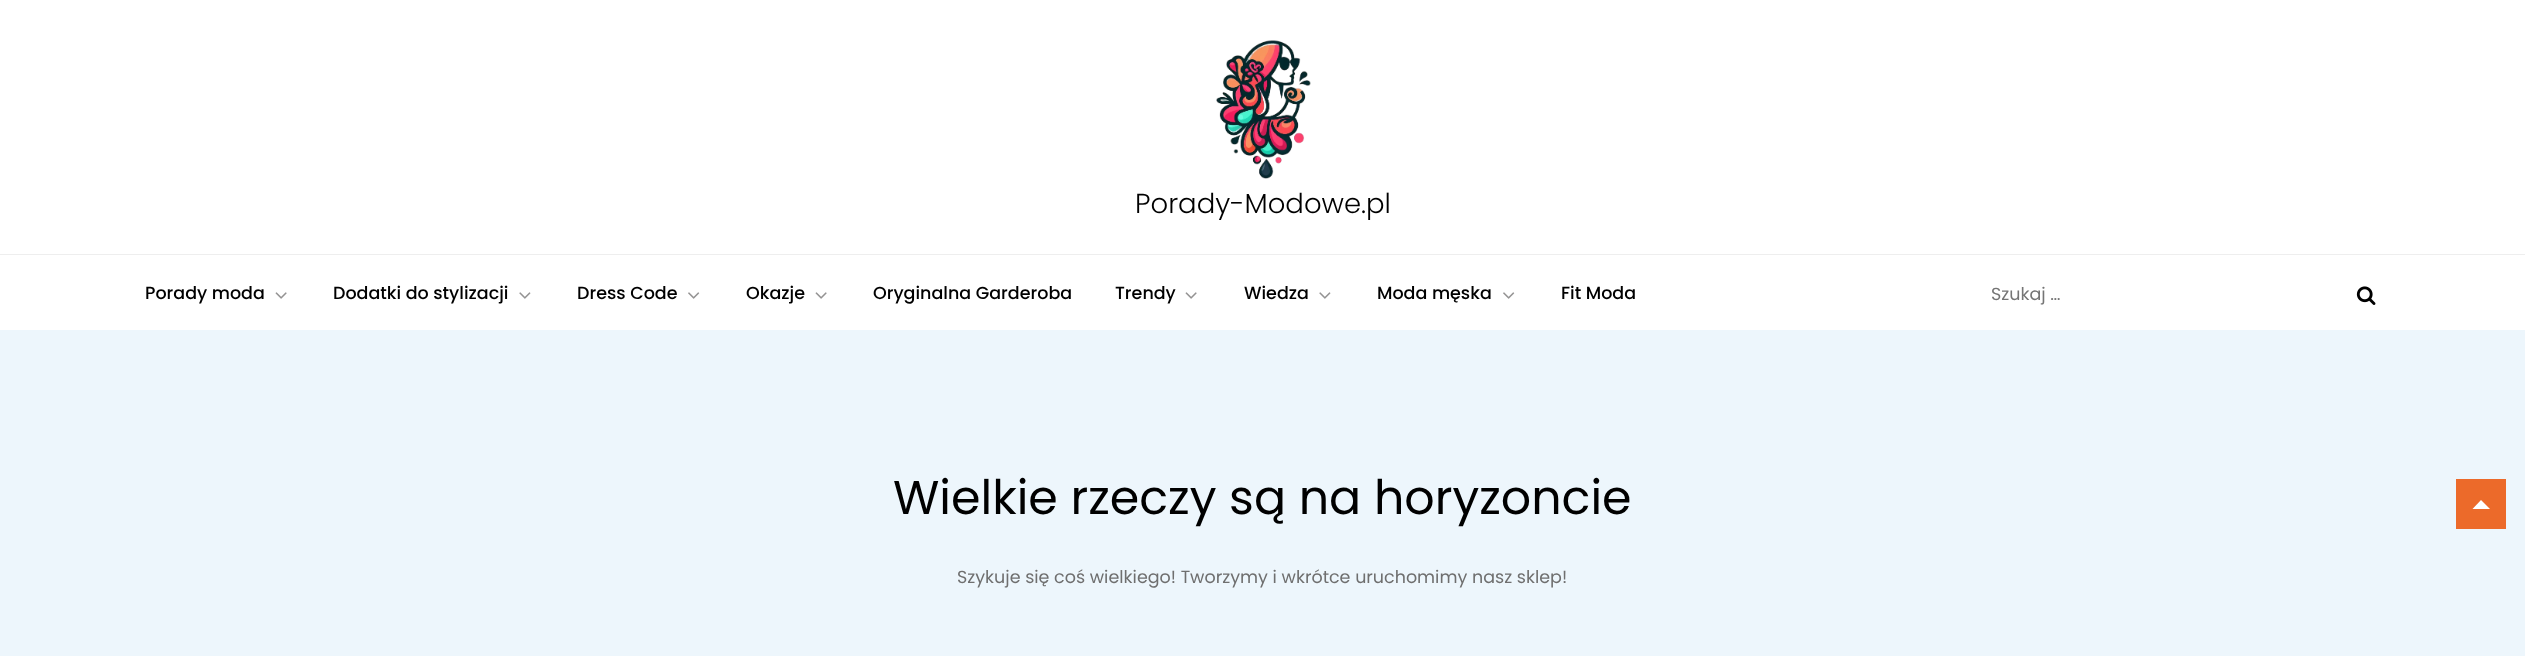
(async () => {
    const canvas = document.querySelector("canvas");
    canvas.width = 2525;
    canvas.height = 656;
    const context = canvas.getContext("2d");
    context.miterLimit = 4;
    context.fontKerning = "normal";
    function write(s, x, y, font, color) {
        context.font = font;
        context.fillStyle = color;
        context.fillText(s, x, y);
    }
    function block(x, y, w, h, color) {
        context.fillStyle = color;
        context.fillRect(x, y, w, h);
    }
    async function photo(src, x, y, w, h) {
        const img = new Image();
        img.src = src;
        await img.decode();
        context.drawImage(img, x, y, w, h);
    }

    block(0, 0, 2525, 656, "rgb(237, 246, 252)");
    block(0, 0, 2525, 330, "rgb(255, 255, 255)");
    block(0, 254, 2525, 1, "rgb(238, 238, 238)");
    await photo("media/1.png", 1216, 40, 95, 139);
    write("Porady-Modowe.pl", 1135, 213, "300 27.5px Poppins", "rgb(0, 0, 0)");
    write("Porady moda", 145, 299, "500 17.5px Poppins", "rgb(0, 0, 0)");
    await photo("media/2.png", 275, 292, 12, 7);
    write("Dodatki do stylizacji", 333, 299, "500 17.5px Poppins", "rgb(0, 0, 0)");
    await photo("media/3.png", 519, 292, 12, 7);
    write("Dress Code", 577, 299, "500 17.5px Poppins", "rgb(0, 0, 0)");
    await photo("media/4.png", 688, 292, 12, 7);
    write("Okazje", 746, 299, "500 17.5px Poppins", "rgb(0, 0, 0)");
    await photo("media/2.png", 815, 292, 12, 7);
    write("Oryginalna Garderoba", 873, 299, "500 17.5px Poppins", "rgb(0, 0, 0)");
    write("Trendy", 1115, 299, "500 17.5px Poppins", "rgb(0, 0, 0)");
    await photo("media/2.png", 1185, 292, 12, 7);
    write("Wiedza", 1244, 299, "500 17.5px Poppins", "rgb(0, 0, 0)");
    await photo("media/3.png", 1319, 292, 12, 7);
    write("Moda męska", 1377, 299, "500 17.5px Poppins", "rgb(0, 0, 0)");
    await photo("media/4.png", 1503, 292, 12, 7);
    write("Fit Moda", 1561, 299, "500 17.5px Poppins", "rgb(0, 0, 0)");
    write("Szukaj …", 1991, 300, "17.5px Poppins", "rgb(117, 117, 117)");
    await photo("media/5.png", 2356, 286, 20, 19);
    write("Wielkie rzeczy są na horyzoncie", 893, 514, "47.5px Poppins", "rgb(0, 0, 0)");
    write("Szykuje się coś wielkiego! Tworzymy i wkrótce uruchomimy nasz sklep!", 957, 583, "17.5px Poppins", "rgb(111, 111, 111)");
    block(2456, 479, 50, 50, "rgb(236, 106, 42)");
    context.fillStyle = "rgb(255, 255, 255)";
    context.beginPath();
    context.moveTo(2490, 509);
    context.lineTo(2472.5, 509);
    context.lineTo(2481, 500);
    context.closePath();
    context.fill();
})();
